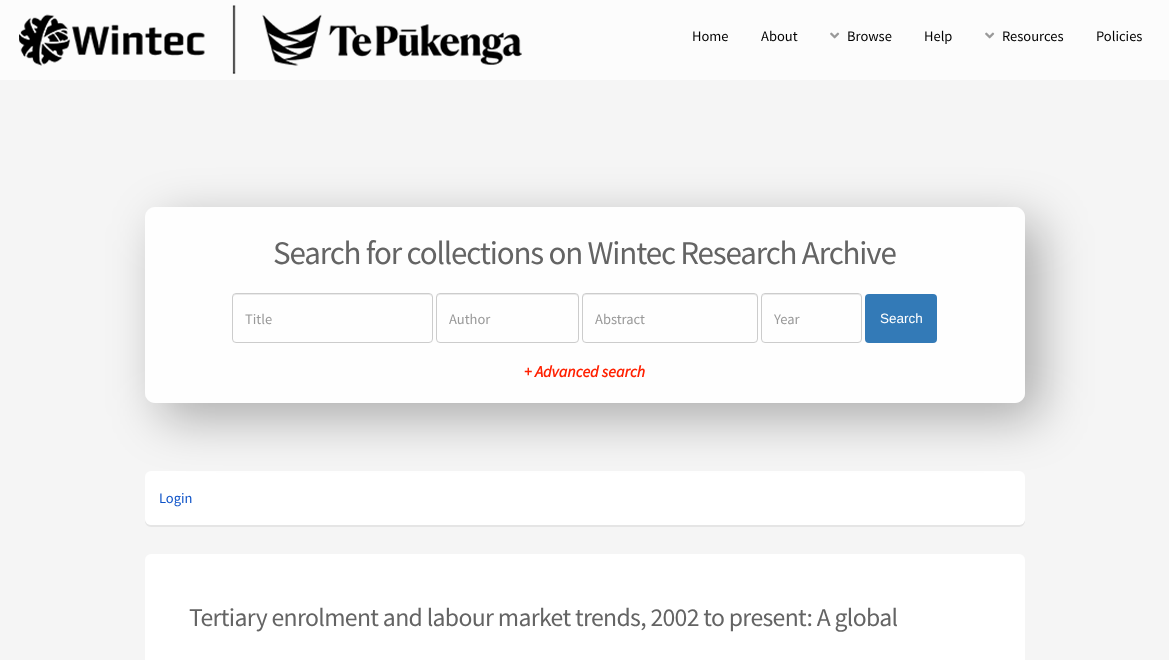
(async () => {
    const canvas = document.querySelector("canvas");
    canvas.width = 1169;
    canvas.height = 660;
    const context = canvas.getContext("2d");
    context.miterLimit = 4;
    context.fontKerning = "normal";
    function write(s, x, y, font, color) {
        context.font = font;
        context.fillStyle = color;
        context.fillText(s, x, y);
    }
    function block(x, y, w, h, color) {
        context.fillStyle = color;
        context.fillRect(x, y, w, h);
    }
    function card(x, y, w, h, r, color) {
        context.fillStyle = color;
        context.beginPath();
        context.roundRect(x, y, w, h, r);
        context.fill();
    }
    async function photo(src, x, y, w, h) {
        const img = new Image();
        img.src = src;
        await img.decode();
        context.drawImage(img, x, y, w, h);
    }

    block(0, 0, 1169, 660, "rgb(245, 245, 245)");
    block(0, 0, 1169, 80, "rgb(252, 252, 252)");
    await photo("media/1.png", 19, 5, 503, 69);
    write("Home", 692, 41, "14.5px Source Sans Pro", "rgb(0, 0, 0)");
    write("About", 761, 41, "14.5px Source Sans Pro", "rgb(0, 0, 0)");
    await photo("media/2.png", 830, 32, 10, 7);
    write("Browse", 847, 41, "14.5px Source Sans Pro", "rgb(0, 0, 0)");
    write("Help", 924, 41, "14.5px Source Sans Pro", "rgb(0, 0, 0)");
    await photo("media/2.png", 985, 32, 10, 7);
    write("Resources", 1002, 41, "14.5px Source Sans Pro", "rgb(0, 0, 0)");
    write("Policies", 1096, 41, "14.5px Source Sans Pro", "rgb(0, 0, 0)");
    context.fillStyle = "rgb(229, 229, 229)";
    context.beginPath();
    context.moveTo(145, 519);
    context.lineTo(145, 521);
    context.bezierCurveTo(145, 524, 148, 527, 151, 527);
    context.lineTo(1019, 527);
    context.bezierCurveTo(1022, 527, 1025, 524, 1025, 521);
    context.lineTo(1025, 519);
    context.bezierCurveTo(1025, 522, 1022, 525, 1019, 525);
    context.lineTo(151, 525);
    context.bezierCurveTo(148, 525, 145, 522, 145, 519);
    context.closePath();
    context.fill();
    card(145, 471, 880, 54, 6, "rgb(255, 255, 255)");
    context.save();
    context.beginPath();
    context.moveTo(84, 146);
    context.lineTo(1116, 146);
    context.lineTo(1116, 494);
    context.lineTo(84, 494);
    context.closePath();
    context.moveTo(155, 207);
    context.lineTo(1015, 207);
    context.bezierCurveTo(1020.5, 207, 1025, 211.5, 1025, 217);
    context.lineTo(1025, 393);
    context.bezierCurveTo(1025, 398.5, 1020.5, 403, 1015, 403);
    context.lineTo(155, 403);
    context.bezierCurveTo(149.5, 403, 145, 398.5, 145, 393);
    context.lineTo(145, 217);
    context.bezierCurveTo(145, 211.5, 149.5, 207, 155, 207);
    context.closePath();
    context.clip("evenodd");
    context.fillStyle = "rgba(0, 0, 0, 0.3)";
    context.filter = "blur(25px)";
    context.beginPath();
    context.roundRect(160, 222, 880, 196, 10);
    context.fill();
    context.filter = "none";
    context.restore();
    card(145, 207, 880, 196, 10, "rgba(255, 255, 255, 0.85)");
    context.letterSpacing = "-1.15px";
    write("Search for collections on Wintec Research Archive", 273, 264, "33px Source Sans Pro", "rgb(100, 100, 100)");
    context.fillStyle = "rgb(234, 234, 234)";
    context.beginPath();
    context.moveTo(236, 295);
    context.lineTo(429, 295);
    context.bezierCurveTo(431, 295, 432, 297, 432, 298);
    context.bezierCurveTo(432, 296, 431, 294, 429, 294);
    context.lineTo(236, 294);
    context.bezierCurveTo(234, 294, 233, 296, 233, 298);
    context.bezierCurveTo(233, 297, 234, 295, 236, 295);
    context.closePath();
    context.fill();
    context.beginPath();
    context.roundRect(232.5, 293.5, 200, 49, 3.5);
    context.strokeStyle = "rgb(204, 204, 204)";
    context.stroke();
    context.letterSpacing = "0px";
    write("Title", 245, 324, "14.5px Source Sans Pro", "rgb(153, 153, 153)");
    context.fillStyle = "rgb(234, 234, 234)";
    context.beginPath();
    context.moveTo(440, 295);
    context.lineTo(575, 295);
    context.bezierCurveTo(577, 295, 578, 297, 578, 298);
    context.lineTo(578, 297);
    context.bezierCurveTo(578, 295, 577, 294, 575, 294);
    context.lineTo(440, 294);
    context.bezierCurveTo(438, 294, 437, 295, 437, 297);
    context.lineTo(437, 298);
    context.bezierCurveTo(437, 297, 438, 295, 440, 295);
    context.closePath();
    context.fill();
    context.beginPath();
    context.roundRect(436.5, 293.5, 142, 49, 3.5);
    context.stroke();
    write("Author", 449, 324, "14.5px Source Sans Pro", "rgb(153, 153, 153)");
    context.fillStyle = "rgb(234, 234, 234)";
    context.beginPath();
    context.moveTo(586, 295);
    context.lineTo(754, 295);
    context.bezierCurveTo(756, 295, 757, 297, 757, 298);
    context.lineTo(757, 297);
    context.bezierCurveTo(757, 295, 756, 294, 754, 294);
    context.lineTo(586, 294);
    context.bezierCurveTo(584, 294, 583, 295, 583, 297);
    context.lineTo(583, 298);
    context.bezierCurveTo(583, 297, 584, 295, 586, 295);
    context.closePath();
    context.fill();
    context.beginPath();
    context.roundRect(582.5, 293.5, 175, 49, 3.5);
    context.stroke();
    write("Abstract", 595, 324, "14.5px Source Sans Pro", "rgb(153, 153, 153)");
    context.fillStyle = "rgb(234, 234, 234)";
    context.beginPath();
    context.moveTo(765, 295);
    context.lineTo(858, 295);
    context.bezierCurveTo(860, 295, 861, 297, 861, 298);
    context.bezierCurveTo(861, 290, 845, 294, 842, 294);
    context.lineTo(780, 294);
    context.bezierCurveTo(778, 294, 762, 290, 762, 298);
    context.bezierCurveTo(762, 297, 763, 295, 765, 295);
    context.closePath();
    context.fill();
    context.beginPath();
    context.roundRect(761.5, 293.5, 100, 49, 3.5);
    context.stroke();
    write("Year", 774, 324, "14.5px Source Sans Pro", "rgb(153, 153, 153)");
    card(865, 294, 72, 49, 4, "rgb(51, 122, 183)");
    write("Search", 880, 323, "13.5px Liberation Sans", "rgb(255, 255, 255)");
    write("+ Advanced search", 524, 377, "italic bold 16px Source Sans Pro", "rgb(255, 32, 0)");
    write("Login", 159, 503, "14.5px Source Sans Pro", "rgb(14, 83, 200)");
    card(145, 554, 880, 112, 6, "rgb(255, 255, 255)");
    context.letterSpacing = "-0.65px";
    write("Tertiary enrolment and labour market trends, 2002 to present: A global", 189, 626, "25.7px Source Sans Pro", "rgb(100, 100, 100)");
})();
